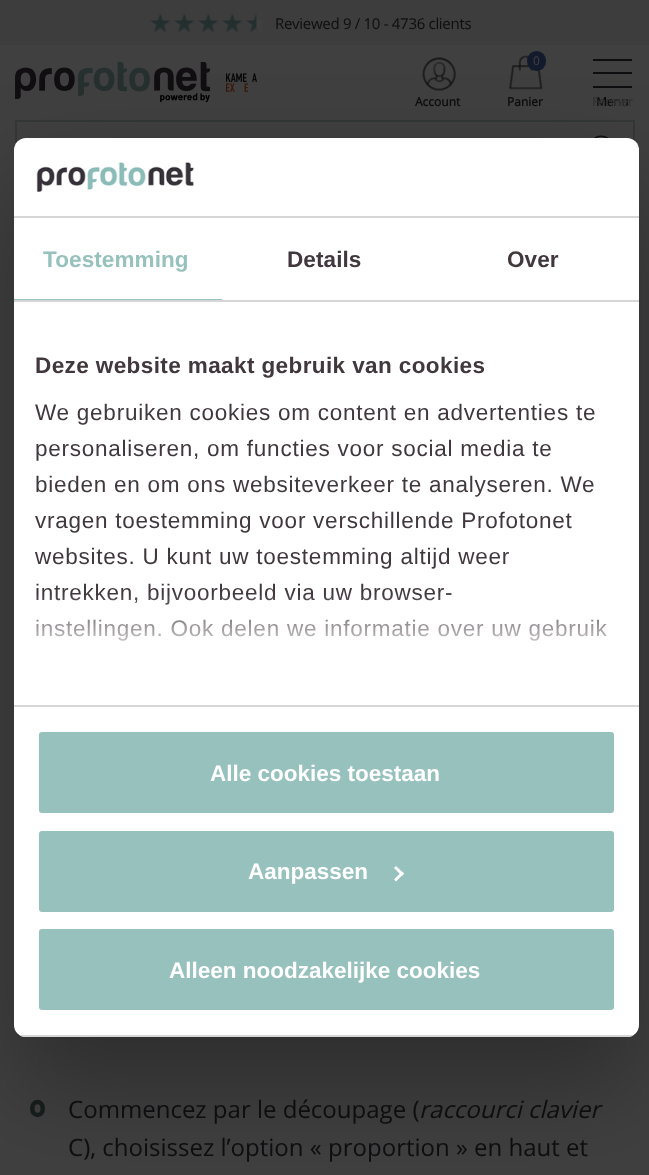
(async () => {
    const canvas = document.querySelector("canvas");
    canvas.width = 649;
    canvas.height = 1175;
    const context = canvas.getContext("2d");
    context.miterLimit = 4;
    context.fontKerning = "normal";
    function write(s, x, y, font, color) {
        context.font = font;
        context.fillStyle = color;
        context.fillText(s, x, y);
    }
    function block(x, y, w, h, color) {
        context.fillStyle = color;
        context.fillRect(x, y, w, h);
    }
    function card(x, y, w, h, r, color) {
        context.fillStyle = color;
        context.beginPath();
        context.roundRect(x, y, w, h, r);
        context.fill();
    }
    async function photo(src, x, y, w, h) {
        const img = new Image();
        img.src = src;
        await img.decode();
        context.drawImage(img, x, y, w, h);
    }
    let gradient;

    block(0, 0, 649, 1175, "rgb(64, 64, 64)");
    block(0, 0, 649, 45, "rgb(61, 61, 61)");
    await photo("media/1.png", 150, 13, 21, 20);
    await photo("media/1.png", 174, 13, 21, 20);
    await photo("media/1.png", 198, 13, 21, 20);
    await photo("media/1.png", 222, 13, 21, 20);
    await photo("media/2.png", 246, 13, 20, 20);
    context.letterSpacing = "-0.3px";
    write("Reviewed 9 / 10 - 4736 clients", 275, 29, "15px Open Sans", "rgb(14, 13, 15)");
    await photo("media/3.png", 15, 62, 195, 41);
    await photo("media/4.png", 226, 73, 31, 19);
    await photo("media/5.png", 422, 57, 34, 34);
    context.letterSpacing = "0px";
    write("Account", 415, 106, "bold 12px Open Sans", "rgb(14, 13, 15)");
    await photo("media/6.png", 509, 55, 34, 35);
    card(527, 51, 19, 20, 9.5, "rgb(18, 26, 44)");
    write("0", 533, 65, "12px Open Sans", "rgb(64, 64, 64)");
    write("Panier", 507, 106, "bold 12px Open Sans", "rgb(14, 13, 15)");
    block(593, 72, 39, 2, "rgb(14, 13, 15)");
    block(593, 59, 39, 2, "rgb(14, 13, 15)");
    block(593, 86, 39, 2, "rgb(14, 13, 15)");
    write("Menu", 596, 106, "bold 12px Open Sans", "rgb(14, 13, 15)");
    write("Fermer", 592, 106, "bold 12px Open Sans", "rgb(51, 50, 51)");
    context.strokeStyle = "rgb(51, 55, 53)";
    context.lineWidth = 2;
    context.strokeRect(16, 121, 618, 58);
    await photo("media/8.png", 594, 135, 14, 3);
    context.beginPath();
    context.moveTo(37.5, 1102);
    context.bezierCurveTo(44.5, 1102, 44.5, 1115, 37.5, 1115);
    context.bezierCurveTo(30.5, 1115, 30.5, 1102, 37.5, 1102);
    context.closePath();
    context.strokeStyle = "rgb(24, 30, 29)";
    context.lineWidth = 4.5;
    context.stroke();
    context.fillStyle = "rgba(0, 0, 0, 0.3)";
    context.filter = "blur(51px)";
    context.beginPath();
    context.roundRect(14, 186, 625, 899, 12);
    context.fill();
    context.filter = "none";
    card(14, 138, 625, 899, 12, "rgb(255, 255, 255)");
    block(14, 216, 625, 2, "rgb(214, 214, 214)");
    await photo("media/7.png", 36, 162, 158, 30);
    block(14, 300, 625, 2, "rgb(214, 214, 214)");
    block(14, 299, 208, 1, "rgb(151, 193, 189)");
    context.letterSpacing = "0.1px";
    write("Toestemming", 43, 267, "bold 22.5px Liberation Sans", "rgb(151, 193, 189)");
    write("Details", 287, 267, "bold 22.5px Liberation Sans", "rgb(65, 56, 62)");
    write("Over", 507, 267, "bold 22.5px Liberation Sans", "rgb(65, 56, 62)");
    block(14, 705, 625, 2, "rgb(214, 214, 214)");
    context.letterSpacing = "0.4px";
    write("Deze website maakt gebruik van cookies", 35, 373, "bold 22.5px Liberation Sans", "rgb(65, 56, 62)");
    context.letterSpacing = "0.75px";
    write("We gebruiken cookies om content en advertenties te", 35, 420, "22.5px Liberation Sans", "rgb(65, 56, 62)");
    write("personaliseren, om functies voor social media te", 35, 456, "22.5px Liberation Sans", "rgb(65, 56, 62)");
    write("bieden en om ons websiteverkeer te analyseren. We", 35, 492, "22.5px Liberation Sans", "rgb(65, 56, 62)");
    write("vragen toestemming voor verschillende Profotonet", 35, 528, "22.5px Liberation Sans", "rgb(65, 56, 62)");
    write("websites. U kunt uw toestemming altijd weer", 35, 564, "22.5px Liberation Sans", "rgb(65, 56, 62)");
    write("intrekken, bijvoorbeeld via uw browser-", 35, 600, "22.5px Liberation Sans", "rgb(65, 56, 62)");
    write("instellingen. Ook delen we informatie over uw gebruik", 35, 636, "22.5px Liberation Sans", "rgb(65, 56, 62)");
    gradient = context.createLinearGradient(316, 705, 316, 593);
    gradient.addColorStop(0, "rgb(255, 255, 255)");
    gradient.addColorStop(0.5, "rgba(255, 255, 255, 0.8)");
    gradient.addColorStop(1, "rgba(255, 255, 255, 0)");
    context.fillStyle = gradient;
    context.fillRect(36, 595, 571, 46);
    context.save();
    context.beginPath();
    context.roundRect(14, 138, 625, 899, 12);
    context.clip();
    block(14, 1035, 625, 2, "rgb(214, 214, 214)");
    context.restore();
    context.fillStyle = "rgb(151, 193, 189)";
    context.beginPath();
    context.roundRect(37.5, 730.5, 578, 84, 4.5);
    context.fill();
    context.strokeStyle = "rgb(255, 255, 255)";
    context.lineWidth = 3;
    context.stroke();
    context.letterSpacing = "0px";
    write("Alle cookies toestaan", 210, 781, "bold 22.5px Liberation Sans", "rgb(255, 255, 255)");
    context.fillStyle = "rgb(151, 193, 189)";
    context.beginPath();
    context.roundRect(37.5, 829.5, 578, 84, 4.5);
    context.fill();
    context.stroke();
    write("Aanpassen", 248, 879, "bold 22.5px Liberation Sans", "rgb(255, 255, 255)");
    context.beginPath();
    context.moveTo(396, 866);
    context.lineTo(404, 873.5);
    context.lineTo(402, 876);
    context.lineTo(394, 868);
    context.closePath();
    context.fill();
    context.beginPath();
    context.moveTo(402, 871.5);
    context.lineTo(404, 873.5);
    context.lineTo(396, 881.5);
    context.lineTo(394, 879.5);
    context.closePath();
    context.fill();
    context.fillStyle = "rgb(151, 193, 189)";
    context.beginPath();
    context.roundRect(37.5, 927.5, 578, 84, 4.5);
    context.fill();
    context.stroke();
    write("Alleen noodzakelijke cookies", 169, 978, "bold 22.5px Liberation Sans", "rgb(255, 255, 255)");
    write("Commencez par le découpage (", 68, 1118, "24px Open Sans", "rgb(14, 13, 15)");
    write("raccourci clavier", 419, 1118, "italic 24px Open Sans", "rgb(14, 13, 15)");
    write("C), choisissez l’option « proportion » en haut et", 68, 1156, "24px Open Sans", "rgb(14, 13, 15)");
})();
